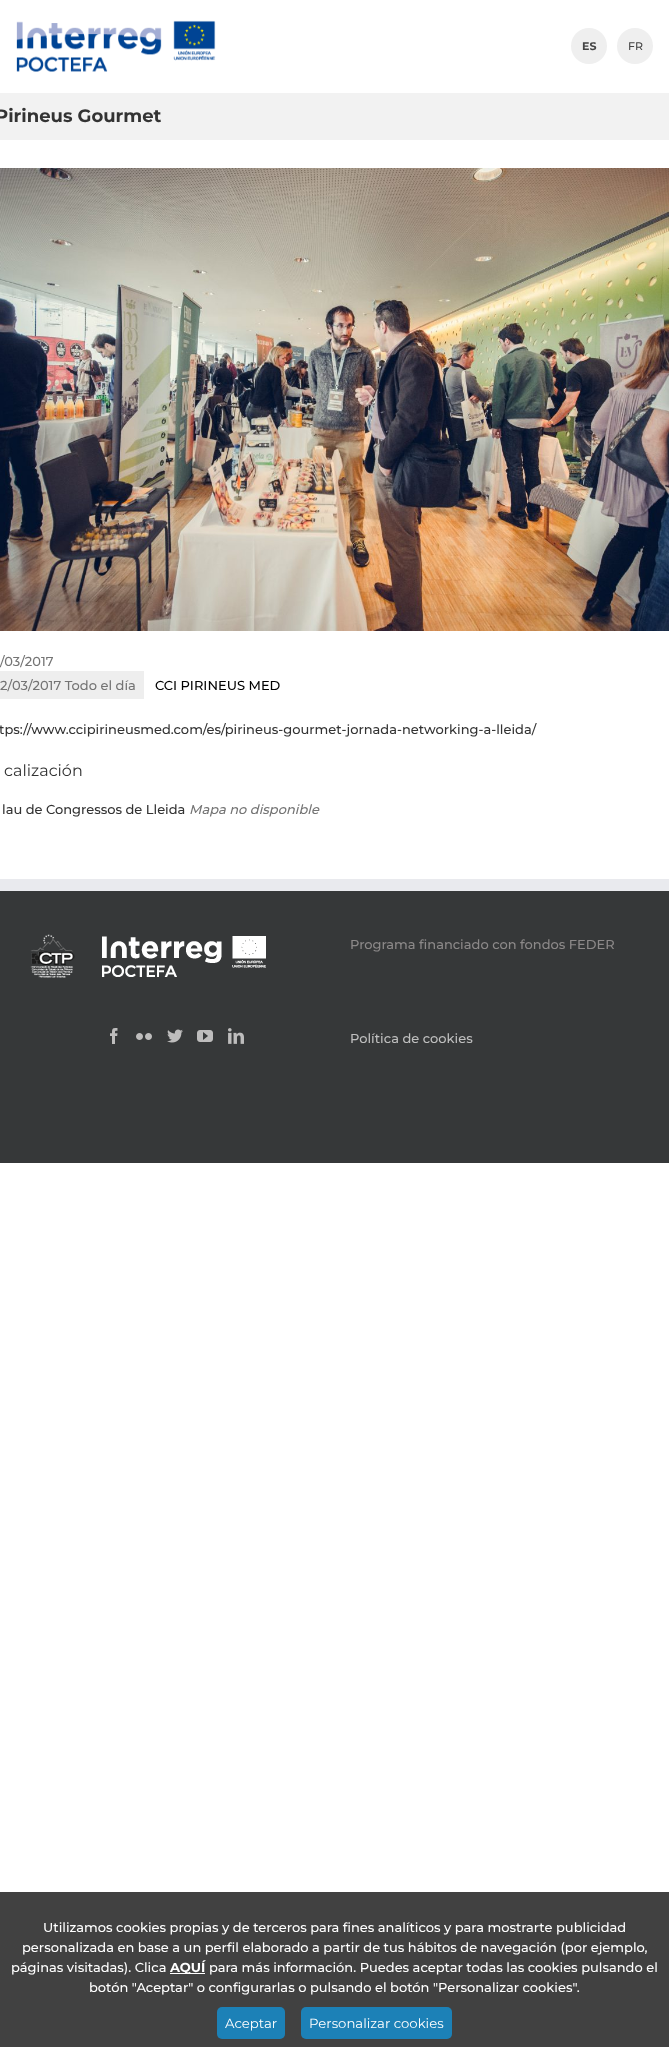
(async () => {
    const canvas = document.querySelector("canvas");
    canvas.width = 669;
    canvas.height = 2047;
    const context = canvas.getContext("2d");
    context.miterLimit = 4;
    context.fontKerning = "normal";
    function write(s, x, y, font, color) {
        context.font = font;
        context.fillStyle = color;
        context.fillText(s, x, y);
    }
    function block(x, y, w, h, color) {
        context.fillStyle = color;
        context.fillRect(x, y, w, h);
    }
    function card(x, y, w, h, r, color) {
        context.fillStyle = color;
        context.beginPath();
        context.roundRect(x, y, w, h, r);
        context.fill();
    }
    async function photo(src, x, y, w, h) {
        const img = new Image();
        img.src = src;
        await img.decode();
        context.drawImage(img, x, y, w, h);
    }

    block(0, 0, 669, 2047, "rgb(255, 255, 255)");
    await photo("media/1.png", 16, 20, 200, 52);
    context.fillStyle = "rgb(239, 239, 239)";
    context.beginPath();
    context.arc(589, 46, 18, 0, Math.PI * 2);
    context.fill();
    write("ES", 582, 50, "bold 11px Montserrat", "rgb(68, 68, 68)");
    context.fillStyle = "rgb(239, 239, 239)";
    context.beginPath();
    context.arc(635, 46, 18, 0, Math.PI * 2);
    context.fill();
    write("FR", 628, 50, "500 11px Montserrat", "rgb(68, 68, 68)");
    block(0, 93, 669, 47, "rgb(242, 242, 242)");
    write("Pirineus Gourmet", -5, 122, "bold 18px Montserrat", "rgb(51, 51, 51)");
    await photo("media/2.png", 0, 168, 669, 463);
    write("/03/2017", 0, 666, "500 13px Montserrat", "rgb(116, 116, 116)");
    block(0, 671, 144, 28, "rgb(238, 238, 238)");
    write("2/03/2017 Todo el día", 0, 690, "500 13px Montserrat", "rgb(116, 116, 116)");
    write("CCI PIRINEUS MED", 155, 690, "500 13px Montserrat", "rgb(0, 0, 0)");
    write("tps://www.ccipirineusmed.com/es/pirineus-gourmet-jornada-networking-a-lleida/", -1, 734, "500 13px Montserrat", "rgb(51, 51, 51)");
    write("calización", 4, 776, "16px Montserrat", "rgb(51, 51, 51)");
    write("lau de Congressos de Lleida", 2, 814, "500 13px Montserrat", "rgb(51, 51, 51)");
    write("Mapa no disponible", 189, 814, "italic 500 13px Montserrat", "rgb(116, 116, 116)");
    block(0, 891, 669, 272, "rgb(54, 56, 57)");
    block(0, 879, 669, 12, "rgb(233, 234, 238)");
    await photo("media/3.png", 30, 934, 45, 44);
    await photo("media/4.png", 102, 936, 164, 41);
    write("Programa financiado con fondos FEDER", 350, 949, "500 13px Montserrat", "rgb(140, 137, 137)");
    await photo("media/5.png", 110, 1028, 8, 16);
    await photo("media/6.png", 136, 1033, 16, 7);
    await photo("media/7.png", 167, 1029, 16, 14);
    await photo("media/8.png", 197, 1030, 16, 12);
    await photo("media/9.png", 228, 1028, 16, 16);
    write("Política de cookies", 350, 1043, "500 13px Montserrat", "rgb(191, 191, 191)");
    block(0, 1892, 669, 155, "rgb(65, 65, 65)");
    write("Utilizamos cookies propias y de terceros para fines analíticos y para mostrarte publicidad", 43, 1932, "500 13px Montserrat", "rgb(255, 255, 255)");
    write("personalizada en base a un perfil elaborado a partir de tus hábitos de navegación (por ejemplo,", 22, 1952, "500 13px Montserrat", "rgb(255, 255, 255)");
    write("páginas visitadas). Clica", 11, 1972, "500 13px Montserrat", "rgb(255, 255, 255)");
    block(170, 1973, 35, 1, "rgb(255, 255, 255)");
    write("AQUÍ", 170, 1972, "bold 13px Montserrat", "rgb(255, 255, 255)");
    write("para más información. Puedes aceptar todas las cookies pulsando el", 209, 1972, "500 13px Montserrat", "rgb(255, 255, 255)");
    write("botón \"Aceptar\" o configurarlas o pulsando el botón \"Personalizar cookies\".", 89, 1992, "500 13px Montserrat", "rgb(255, 255, 255)");
    card(217, 2007, 68, 32, 5, "rgb(28, 129, 183)");
    write("Aceptar", 225, 2028, "13.25px Montserrat", "rgb(255, 255, 255)");
    card(301, 2007, 151, 32, 5, "rgb(28, 129, 183)");
    write("Personalizar cookies", 309, 2028, "13.25px Montserrat", "rgb(255, 255, 255)");
})();
